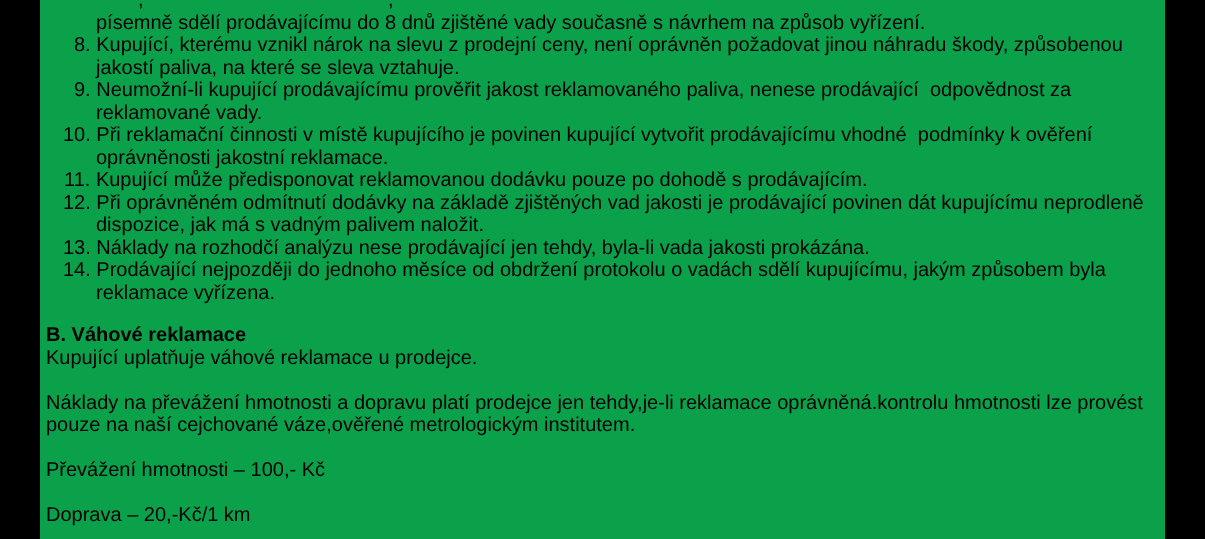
(async () => {
    const canvas = document.querySelector("canvas");
    canvas.width = 1205;
    canvas.height = 539;
    const context = canvas.getContext("2d");
    context.miterLimit = 4;
    context.fontKerning = "normal";
    function write(s, x, y, font, color) {
        context.font = font;
        context.fillStyle = color;
        context.fillText(s, x, y);
    }
    function block(x, y, w, h, color) {
        context.fillStyle = color;
        context.fillRect(x, y, w, h);
    }

    block(0, 0, 1205, 539, "rgb(0, 0, 0)");
    block(40, 0, 1125, 539, "rgb(11, 161, 75)");
    write(",", 138, 6, "20px Liberation Sans", "rgb(0, 0, 0)");
    write(",", 388, 6, "20px Liberation Sans", "rgb(0, 0, 0)");
    write("písemně sdělí prodávajícímu do 8 dnů zjištěné vady současně s návrhem na způsob vyřízení.", 96, 29, "20px Liberation Sans", "rgb(0, 0, 0)");
    write("8. Kupující, kterému vznikl nárok na slevu z prodejní ceny, není oprávněn požadovat jinou náhradu škody, způsobenou", 74, 51, "20px Liberation Sans", "rgb(0, 0, 0)");
    write("jakostí paliva, na které se sleva vztahuje.", 96, 74, "20px Liberation Sans", "rgb(0, 0, 0)");
    write("9. Neumožní-li kupující prodávajícímu prověřit jakost reklamovaného paliva, nenese prodávající  odpovědnost za", 74, 96, "20px Liberation Sans", "rgb(0, 0, 0)");
    write("reklamované vady.", 96, 119, "20px Liberation Sans", "rgb(0, 0, 0)");
    write("10. Při reklamační činnosti v místě kupujícího je povinen kupující vytvořit prodávajícímu vhodné  podmínky k ověření", 63, 141, "20px Liberation Sans", "rgb(0, 0, 0)");
    write("oprávněnosti jakostní reklamace.", 96, 164, "20px Liberation Sans", "rgb(0, 0, 0)");
    write("11. Kupující může předisponovat reklamovanou dodávku pouze po dohodě s prodávajícím.", 64, 186, "20px Liberation Sans", "rgb(0, 0, 0)");
    write("12. Při oprávněném odmítnutí dodávky na základě zjištěných vad jakosti je prodávající povinen dát kupujícímu neprodleně", 63, 209, "20px Liberation Sans", "rgb(0, 0, 0)");
    write("dispozice, jak má s vadným palivem naložit.", 96, 231, "20px Liberation Sans", "rgb(0, 0, 0)");
    write("13. Náklady na rozhodčí analýzu nese prodávající jen tehdy, byla-li vada jakosti prokázána.", 63, 254, "20px Liberation Sans", "rgb(0, 0, 0)");
    write("14. Prodávající nejpozději do jednoho měsíce od obdržení protokolu o vadách sdělí kupujícímu, jakým způsobem byla", 63, 276, "20px Liberation Sans", "rgb(0, 0, 0)");
    write("reklamace vyřízena.", 96, 299, "20px Liberation Sans", "rgb(0, 0, 0)");
    write("B. Váhové reklamace", 46, 341, "bold 20px Liberation Sans", "rgb(0, 0, 0)");
    write("Kupující uplatňuje váhové reklamace u prodejce.", 46, 364, "20px Liberation Sans", "rgb(0, 0, 0)");
    write("Náklady na převážení hmotnosti a dopravu platí prodejce jen tehdy,je-li reklamace oprávněná.kontrolu hmotnosti lze provést", 46, 409, "20px Liberation Sans", "rgb(0, 0, 0)");
    write("pouze na naší cejchované váze,ověřené metrologickým institutem.", 46, 431, "20px Liberation Sans", "rgb(0, 0, 0)");
    write("Převážení hmotnosti – 100,- Kč", 46, 476, "20px Liberation Sans", "rgb(0, 0, 0)");
    write("Doprava – 20,-Kč/1 km", 46, 521, "20px Liberation Sans", "rgb(0, 0, 0)");
})();
